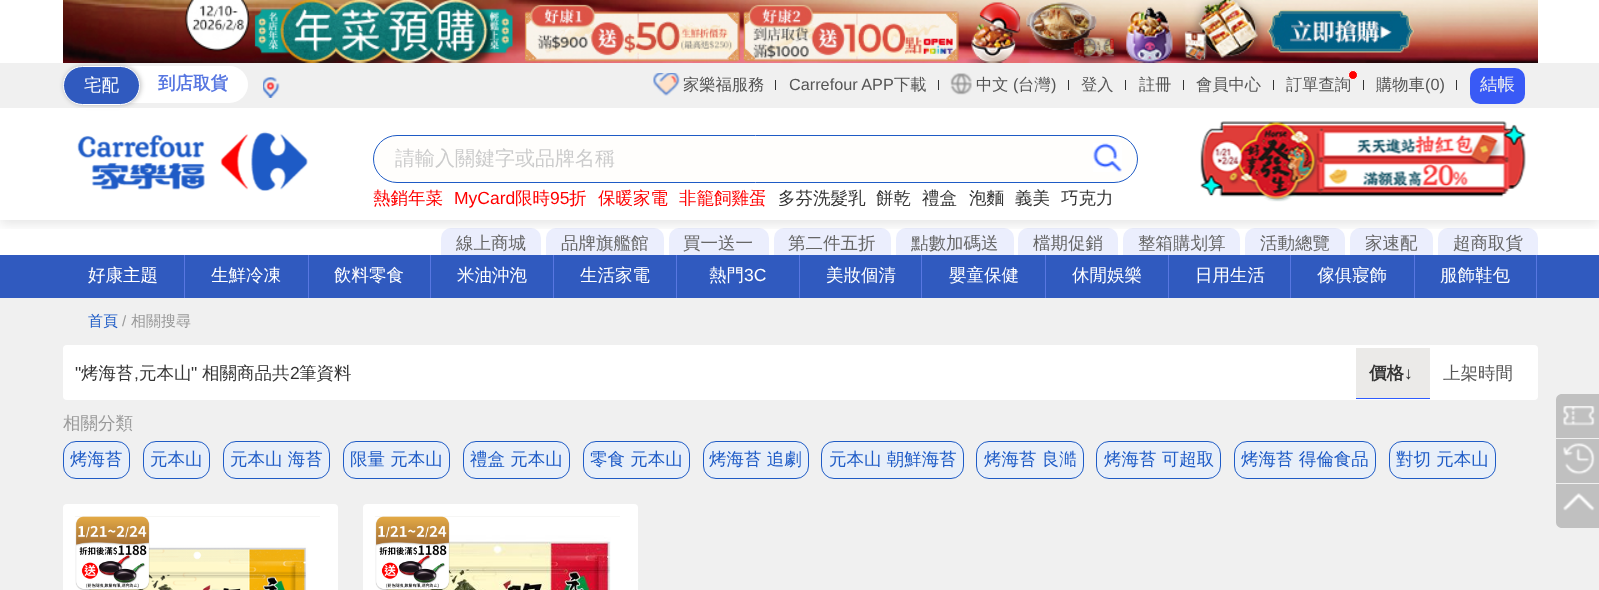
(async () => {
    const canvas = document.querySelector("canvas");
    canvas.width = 1599;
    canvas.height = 590;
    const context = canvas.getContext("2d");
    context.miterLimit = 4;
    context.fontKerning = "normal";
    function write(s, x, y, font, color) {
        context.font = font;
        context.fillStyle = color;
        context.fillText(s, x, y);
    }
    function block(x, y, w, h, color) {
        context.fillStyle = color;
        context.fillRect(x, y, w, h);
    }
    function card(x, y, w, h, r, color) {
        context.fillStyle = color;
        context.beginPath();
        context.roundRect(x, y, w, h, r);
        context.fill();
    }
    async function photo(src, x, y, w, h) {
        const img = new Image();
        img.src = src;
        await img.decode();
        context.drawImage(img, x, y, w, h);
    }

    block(0, 0, 1599, 590, "rgb(240, 240, 240)");
    block(0, 0, 1599, 255, "rgb(255, 255, 255)");
    context.fillStyle = "rgb(235, 238, 253)";
    context.beginPath();
    context.roundRect(441, 228, 100, 30, [10, 10, 0, 0]);
    context.fill();
    context.beginPath();
    context.roundRect(546, 228, 118, 30, [10, 10, 0, 0]);
    context.fill();
    context.beginPath();
    context.roundRect(669, 228, 100, 30, [10, 10, 0, 0]);
    context.fill();
    context.beginPath();
    context.roundRect(774, 228, 117, 30, [10, 10, 0, 0]);
    context.fill();
    context.beginPath();
    context.roundRect(896, 228, 118, 30, [10, 10, 0, 0]);
    context.fill();
    context.beginPath();
    context.roundRect(1018, 228, 100, 30, [10, 10, 0, 0]);
    context.fill();
    context.beginPath();
    context.roundRect(1123, 228, 117, 30, [10, 10, 0, 0]);
    context.fill();
    context.beginPath();
    context.roundRect(1245, 228, 100, 30, [10, 10, 0, 0]);
    context.fill();
    context.beginPath();
    context.roundRect(1350, 228, 83, 30, [10, 10, 0, 0]);
    context.fill();
    context.beginPath();
    context.roundRect(1438, 228, 100, 30, [10, 10, 0, 0]);
    context.fill();
    context.save();
    context.beginPath();
    context.rect(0, 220, 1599, 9);
    context.clip();
    context.fillStyle = "rgba(0, 0, 0, 0.1)";
    context.filter = "blur(6px)";
    context.beginPath();
    context.rect(0, 4, 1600, 220);
    context.fill();
    context.filter = "none";
    context.restore();
    await photo("media/1.png", 63, 0, 1475, 63);
    block(0, 63, 1599, 45, "rgb(240, 240, 240)");
    card(63, 66, 185, 37, 18.5, "rgb(255, 255, 255)");
    context.fillStyle = "rgba(0, 0, 0, 0.25)";
    context.filter = "blur(2.5px)";
    context.beginPath();
    context.roundRect(64, 66, 77, 39, 19.5);
    context.fill();
    context.filter = "none";
    context.fillStyle = "rgb(48, 90, 191)";
    context.beginPath();
    context.roundRect(63.5, 66.5, 76, 38, 19);
    context.fill();
    context.strokeStyle = "rgb(255, 255, 255)";
    context.stroke();
    write("宅配", 84, 91, "500 17.5px WenQuanYi Zen Hei", "rgb(255, 255, 255)");
    write("到店取貨", 158, 89, "bold 17.5px WenQuanYi Zen Hei", "rgb(88, 119, 225)");
    await photo("media/2.png", 263, 77, 17, 21);
    await photo("media/3.png", 653, 73, 27, 23);
    write("家樂福服務", 683, 90, "500 16.25px WenQuanYi Zen Hei", "rgb(85, 85, 85)");
    block(775, 80, 1, 10, "rgb(51, 51, 51)");
    write("Carrefour APP", 789, 90, "16.25px Liberation Sans", "rgb(85, 85, 85)");
    write("下載", 894, 90, "500 16.25px WenQuanYi Zen Hei", "rgb(85, 85, 85)");
    block(938, 80, 1, 10, "rgb(51, 51, 51)");
    await photo("media/4.png", 950, 73, 22, 22);
    write("中文", 976, 90, "500 16.25px WenQuanYi Zen Hei", "rgb(85, 85, 85)");
    write("(", 1013, 90, "16.25px Liberation Sans", "rgb(85, 85, 85)");
    write("台灣", 1018, 90, "500 16.25px WenQuanYi Zen Hei", "rgb(85, 85, 85)");
    write(")", 1051, 90, "16.25px Liberation Sans", "rgb(85, 85, 85)");
    block(1068, 80, 1, 10, "rgb(51, 51, 51)");
    write("登入", 1081, 90, "500 16.25px WenQuanYi Zen Hei", "rgb(85, 85, 85)");
    block(1125, 80, 1, 10, "rgb(51, 51, 51)");
    write("註冊", 1139, 90, "500 16.25px WenQuanYi Zen Hei", "rgb(85, 85, 85)");
    block(1183, 80, 1, 10, "rgb(51, 51, 51)");
    write("會員中心", 1196, 90, "500 16.25px WenQuanYi Zen Hei", "rgb(85, 85, 85)");
    block(1273, 80, 1, 10, "rgb(51, 51, 51)");
    write("訂單查詢", 1286, 90, "500 16.25px WenQuanYi Zen Hei", "rgb(85, 85, 85)");
    context.fillStyle = "rgb(255, 0, 0)";
    context.beginPath();
    context.arc(1353, 75, 4.5, 0, Math.PI * 2);
    context.fill();
    context.stroke();
    block(1363, 80, 1, 10, "rgb(51, 51, 51)");
    write("購物車", 1376, 90, "500 16.25px WenQuanYi Zen Hei", "rgb(85, 85, 85)");
    write("(0)", 1425, 90, "16.25px Liberation Sans", "rgb(85, 85, 85)");
    block(1456, 80, 1, 10, "rgb(51, 51, 51)");
    card(1470, 68, 55, 36, 10, "rgb(57, 90, 246)");
    write("結帳", 1480, 90, "500 17.5px WenQuanYi Zen Hei", "rgb(240, 240, 240)");
    block(78, 108, 49, 1, "rgb(255, 255, 255)");
    await photo("media/5.png", 77, 131, 231, 60);
    context.fillStyle = "rgb(255, 254, 252)";
    context.beginPath();
    context.roundRect(373.5, 135.5, 764, 47, 23.5);
    context.fill();
    context.strokeStyle = "rgb(30, 91, 198)";
    context.stroke();
    write("請輸入關鍵字或品牌名稱", 395, 165, "500 20px WenQuanYi Zen Hei", "rgb(204, 204, 204)");
    await photo("media/6.png", 1093, 143, 29, 29);
    write("熱銷年菜", 373, 204, "500 17.5px WenQuanYi Zen Hei", "rgb(255, 0, 0)");
    write("MyCard", 454, 204, "17.5px Liberation Sans", "rgb(255, 0, 0)");
    write("限時", 515, 204, "500 17.5px WenQuanYi Zen Hei", "rgb(255, 0, 0)");
    write("95", 550, 204, "17.5px Liberation Sans", "rgb(255, 0, 0)");
    write("折", 569, 204, "500 17.5px WenQuanYi Zen Hei", "rgb(255, 0, 0)");
    write("保暖家電", 598, 204, "500 17.5px WenQuanYi Zen Hei", "rgb(255, 0, 0)");
    write("非籠飼雞蛋", 679, 204, "500 17.5px WenQuanYi Zen Hei", "rgb(255, 0, 0)");
    write("多芬洗髮乳", 778, 204, "500 17.5px WenQuanYi Zen Hei", "rgb(51, 51, 51)");
    write("餅乾", 876, 204, "500 17.5px WenQuanYi Zen Hei", "rgb(51, 51, 51)");
    write("禮盒", 922, 204, "500 17.5px WenQuanYi Zen Hei", "rgb(51, 51, 51)");
    write("泡麵", 969, 204, "500 17.5px WenQuanYi Zen Hei", "rgb(51, 51, 51)");
    write("義美", 1015, 204, "500 17.5px WenQuanYi Zen Hei", "rgb(51, 51, 51)");
    write("巧克力", 1061, 204, "500 17.5px WenQuanYi Zen Hei", "rgb(51, 51, 51)");
    await photo("media/7.png", 1200, 121, 326, 81);
    write("線上商城", 456, 249, "500 17.5px WenQuanYi Zen Hei", "rgb(102, 102, 102)");
    write("品牌旗艦館", 561, 249, "500 17.5px WenQuanYi Zen Hei", "rgb(102, 102, 102)");
    write("買一送一", 683, 249, "500 17.5px WenQuanYi Zen Hei", "rgb(102, 102, 102)");
    write("第二件五折", 788, 249, "500 17.5px WenQuanYi Zen Hei", "rgb(102, 102, 102)");
    write("點數加碼送", 911, 249, "500 17.5px WenQuanYi Zen Hei", "rgb(102, 102, 102)");
    write("檔期促銷", 1033, 249, "500 17.5px WenQuanYi Zen Hei", "rgb(102, 102, 102)");
    write("整箱購划算", 1138, 249, "500 17.5px WenQuanYi Zen Hei", "rgb(102, 102, 102)");
    write("活動總覽", 1260, 249, "500 17.5px WenQuanYi Zen Hei", "rgb(102, 102, 102)");
    write("家速配", 1365, 249, "500 17.5px WenQuanYi Zen Hei", "rgb(102, 102, 102)");
    write("超商取貨", 1453, 249, "500 17.5px WenQuanYi Zen Hei", "rgb(102, 102, 102)");
    block(0, 255, 1599, 43, "rgb(48, 90, 191)");
    block(184, 255, 1, 43, "rgb(88, 119, 225)");
    write("好康主題", 88, 281, "500 17.5px WenQuanYi Zen Hei", "rgb(255, 255, 255)");
    block(308, 255, 1, 43, "rgb(88, 119, 225)");
    write("生鮮冷凍", 211, 281, "500 17.5px WenQuanYi Zen Hei", "rgb(255, 255, 255)");
    block(430, 255, 1, 43, "rgb(88, 119, 225)");
    write("飲料零食", 334, 281, "500 17.5px WenQuanYi Zen Hei", "rgb(255, 255, 255)");
    block(553, 255, 1, 43, "rgb(88, 119, 225)");
    write("米油沖泡", 457, 281, "500 17.5px WenQuanYi Zen Hei", "rgb(255, 255, 255)");
    block(676, 255, 1, 43, "rgb(88, 119, 225)");
    write("生活家電", 580, 281, "500 17.5px WenQuanYi Zen Hei", "rgb(255, 255, 255)");
    block(799, 255, 1, 43, "rgb(88, 119, 225)");
    write("熱門", 709, 281, "500 17.5px WenQuanYi Zen Hei", "rgb(255, 255, 255)");
    write("3C", 744, 281, "17.5px Liberation Sans", "rgb(255, 255, 255)");
    block(921, 255, 1, 43, "rgb(88, 119, 225)");
    write("美妝個清", 826, 281, "500 17.5px WenQuanYi Zen Hei", "rgb(255, 255, 255)");
    block(1045, 255, 1, 43, "rgb(88, 119, 225)");
    write("嬰童保健", 949, 281, "500 17.5px WenQuanYi Zen Hei", "rgb(255, 255, 255)");
    block(1168, 255, 1, 43, "rgb(88, 119, 225)");
    write("休閒娛樂", 1072, 281, "500 17.5px WenQuanYi Zen Hei", "rgb(255, 255, 255)");
    block(1290, 255, 1, 43, "rgb(88, 119, 225)");
    write("日用生活", 1195, 281, "500 17.5px WenQuanYi Zen Hei", "rgb(255, 255, 255)");
    block(1414, 255, 1, 43, "rgb(88, 119, 225)");
    write("傢俱寢飾", 1317, 281, "500 17.5px WenQuanYi Zen Hei", "rgb(255, 255, 255)");
    block(1536, 255, 1, 43, "rgb(88, 119, 225)");
    write("服飾鞋包", 1440, 281, "500 17.5px WenQuanYi Zen Hei", "rgb(255, 255, 255)");
    write("首頁", 88, 326, "500 15px WenQuanYi Zen Hei", "rgb(30, 91, 198)");
    write("/", 122, 326, "15px Liberation Sans", "rgb(153, 153, 153)");
    write("相關搜尋", 131, 326, "500 15px WenQuanYi Zen Hei", "rgb(153, 153, 153)");
    card(63, 345, 1475, 55, 4, "rgb(255, 255, 255)");
    write("\"", 75, 379, "17.5px Liberation Sans", "rgb(51, 51, 51)");
    write("烤海苔", 81, 379, "500 17.5px WenQuanYi Zen Hei", "rgb(51, 51, 51)");
    write("元本山", 139, 379, "500 17.5px WenQuanYi Zen Hei", "rgb(51, 51, 51)");
    write("\"", 191, 379, "17.5px Liberation Sans", "rgb(51, 51, 51)");
    write("相關商品共", 202, 379, "500 17.5px WenQuanYi Zen Hei", "rgb(51, 51, 51)");
    write("2", 290, 379, "17.5px Liberation Sans", "rgb(51, 51, 51)");
    write("筆資料", 299, 379, "500 17.5px WenQuanYi Zen Hei", "rgb(51, 51, 51)");
    write(",", 134, 379, "17.5px Liberation Sans", "rgb(51, 51, 51)");
    block(1356, 348, 74, 50, "rgb(235, 234, 232)");
    write("價格", 1369, 379, "bold 17.5px WenQuanYi Zen Hei", "rgb(51, 51, 51)");
    write("↓", 1404, 379, "bold 17.5px Liberation Sans", "rgb(51, 51, 51)");
    block(1356, 398, 74, 1, "rgb(46, 91, 255)");
    write("上架時間", 1443, 379, "500 17.5px WenQuanYi Zen Hei", "rgb(85, 85, 85)");
    write("相關分類", 63, 429, "500 17.5px WenQuanYi Zen Hei", "rgb(153, 153, 153)");
    context.fillStyle = "rgb(232, 239, 249)";
    context.beginPath();
    context.roundRect(63.5, 441.5, 66, 37, 12.5);
    context.fill();
    context.stroke();
    write("烤海苔", 70, 465, "500 17.5px WenQuanYi Zen Hei", "rgb(30, 91, 198)");
    context.fillStyle = "rgb(232, 239, 249)";
    context.beginPath();
    context.roundRect(143.5, 441.5, 66, 37, 12.5);
    context.fill();
    context.stroke();
    write("元本山", 150, 465, "500 17.5px WenQuanYi Zen Hei", "rgb(30, 91, 198)");
    context.fillStyle = "rgb(232, 239, 249)";
    context.beginPath();
    context.roundRect(223.5, 441.5, 106, 37, 12.5);
    context.fill();
    context.stroke();
    write("元本山 海苔", 230, 465, "500 17.5px WenQuanYi Zen Hei", "rgb(30, 91, 198)");
    context.fillStyle = "rgb(232, 239, 249)";
    context.beginPath();
    context.roundRect(343.5, 441.5, 106, 37, 12.5);
    context.fill();
    context.stroke();
    write("限量 元本山", 350, 465, "500 17.5px WenQuanYi Zen Hei", "rgb(30, 91, 198)");
    context.fillStyle = "rgb(232, 239, 249)";
    context.beginPath();
    context.roundRect(463.5, 441.5, 106, 37, 12.5);
    context.fill();
    context.stroke();
    write("禮盒 元本山", 470, 465, "500 17.5px WenQuanYi Zen Hei", "rgb(30, 91, 198)");
    context.fillStyle = "rgb(232, 239, 249)";
    context.beginPath();
    context.roundRect(583.5, 441.5, 106, 37, 12.5);
    context.fill();
    context.stroke();
    write("零食 元本山", 590, 465, "500 17.5px WenQuanYi Zen Hei", "rgb(30, 91, 198)");
    context.fillStyle = "rgb(232, 239, 249)";
    context.beginPath();
    context.roundRect(703.5, 441.5, 105, 37, 12.5);
    context.fill();
    context.stroke();
    write("烤海苔 追劇", 709, 465, "500 17.5px WenQuanYi Zen Hei", "rgb(30, 91, 198)");
    context.fillStyle = "rgb(232, 239, 249)";
    context.beginPath();
    context.roundRect(821.5, 441.5, 142, 37, 12.5);
    context.fill();
    context.stroke();
    write("元本山 朝鮮海苔", 829, 465, "500 17.5px WenQuanYi Zen Hei", "rgb(30, 91, 198)");
    context.fillStyle = "rgb(232, 239, 249)";
    context.beginPath();
    context.roundRect(976.5, 441.5, 107, 37, 12.5);
    context.fill();
    context.stroke();
    write("烤海苔 良澔", 984, 465, "500 17.5px WenQuanYi Zen Hei", "rgb(30, 91, 198)");
    context.fillStyle = "rgb(232, 239, 249)";
    context.beginPath();
    context.roundRect(1096.5, 441.5, 124, 37, 12.5);
    context.fill();
    context.stroke();
    write("烤海苔 可超取", 1104, 465, "500 17.5px WenQuanYi Zen Hei", "rgb(30, 91, 198)");
    context.fillStyle = "rgb(232, 239, 249)";
    context.beginPath();
    context.roundRect(1234.5, 441.5, 141, 37, 12.5);
    context.fill();
    context.stroke();
    write("烤海苔 得倫食品", 1241, 465, "500 17.5px WenQuanYi Zen Hei", "rgb(30, 91, 198)");
    context.fillStyle = "rgb(232, 239, 249)";
    context.beginPath();
    context.roundRect(1389.5, 441.5, 106, 37, 12.5);
    context.fill();
    context.stroke();
    write("對切 元本山", 1396, 465, "500 17.5px WenQuanYi Zen Hei", "rgb(30, 91, 198)");
    card(63, 504, 275, 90, 4, "rgb(255, 255, 255)");
    block(75, 516, 245, 1, "rgb(235, 234, 232)");
    await photo("media/8.png", 75, 516, 245, 74);
    await photo("media/9.png", 75, 516, 75, 74);
    card(363, 504, 275, 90, 4, "rgb(255, 255, 255)");
    block(375, 516, 245, 1, "rgb(235, 234, 232)");
    await photo("media/10.png", 375, 516, 245, 74);
    await photo("media/11.png", 375, 516, 75, 74);
    context.fillStyle = "rgb(192, 192, 192)";
    context.beginPath();
    context.moveTo(1562, 394);
    context.lineTo(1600, 394);
    context.lineTo(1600, 438);
    context.lineTo(1556, 438);
    context.lineTo(1556, 400);
    context.bezierCurveTo(1556, 396.5, 1558.5, 394, 1562, 394);
    context.closePath();
    context.fill();
    await photo("media/12.png", 1563, 406, 32, 20);
    block(1556, 439, 43, 44, "rgb(192, 192, 192)");
    await photo("media/13.png", 1563, 443, 32, 32);
    context.beginPath();
    context.moveTo(1556, 484);
    context.lineTo(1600, 484);
    context.lineTo(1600, 528);
    context.lineTo(1562, 528);
    context.bezierCurveTo(1558.5, 528, 1556, 525.5, 1556, 522);
    context.closePath();
    context.fill();
    await photo("media/14.png", 1563, 493, 32, 18);
})();
